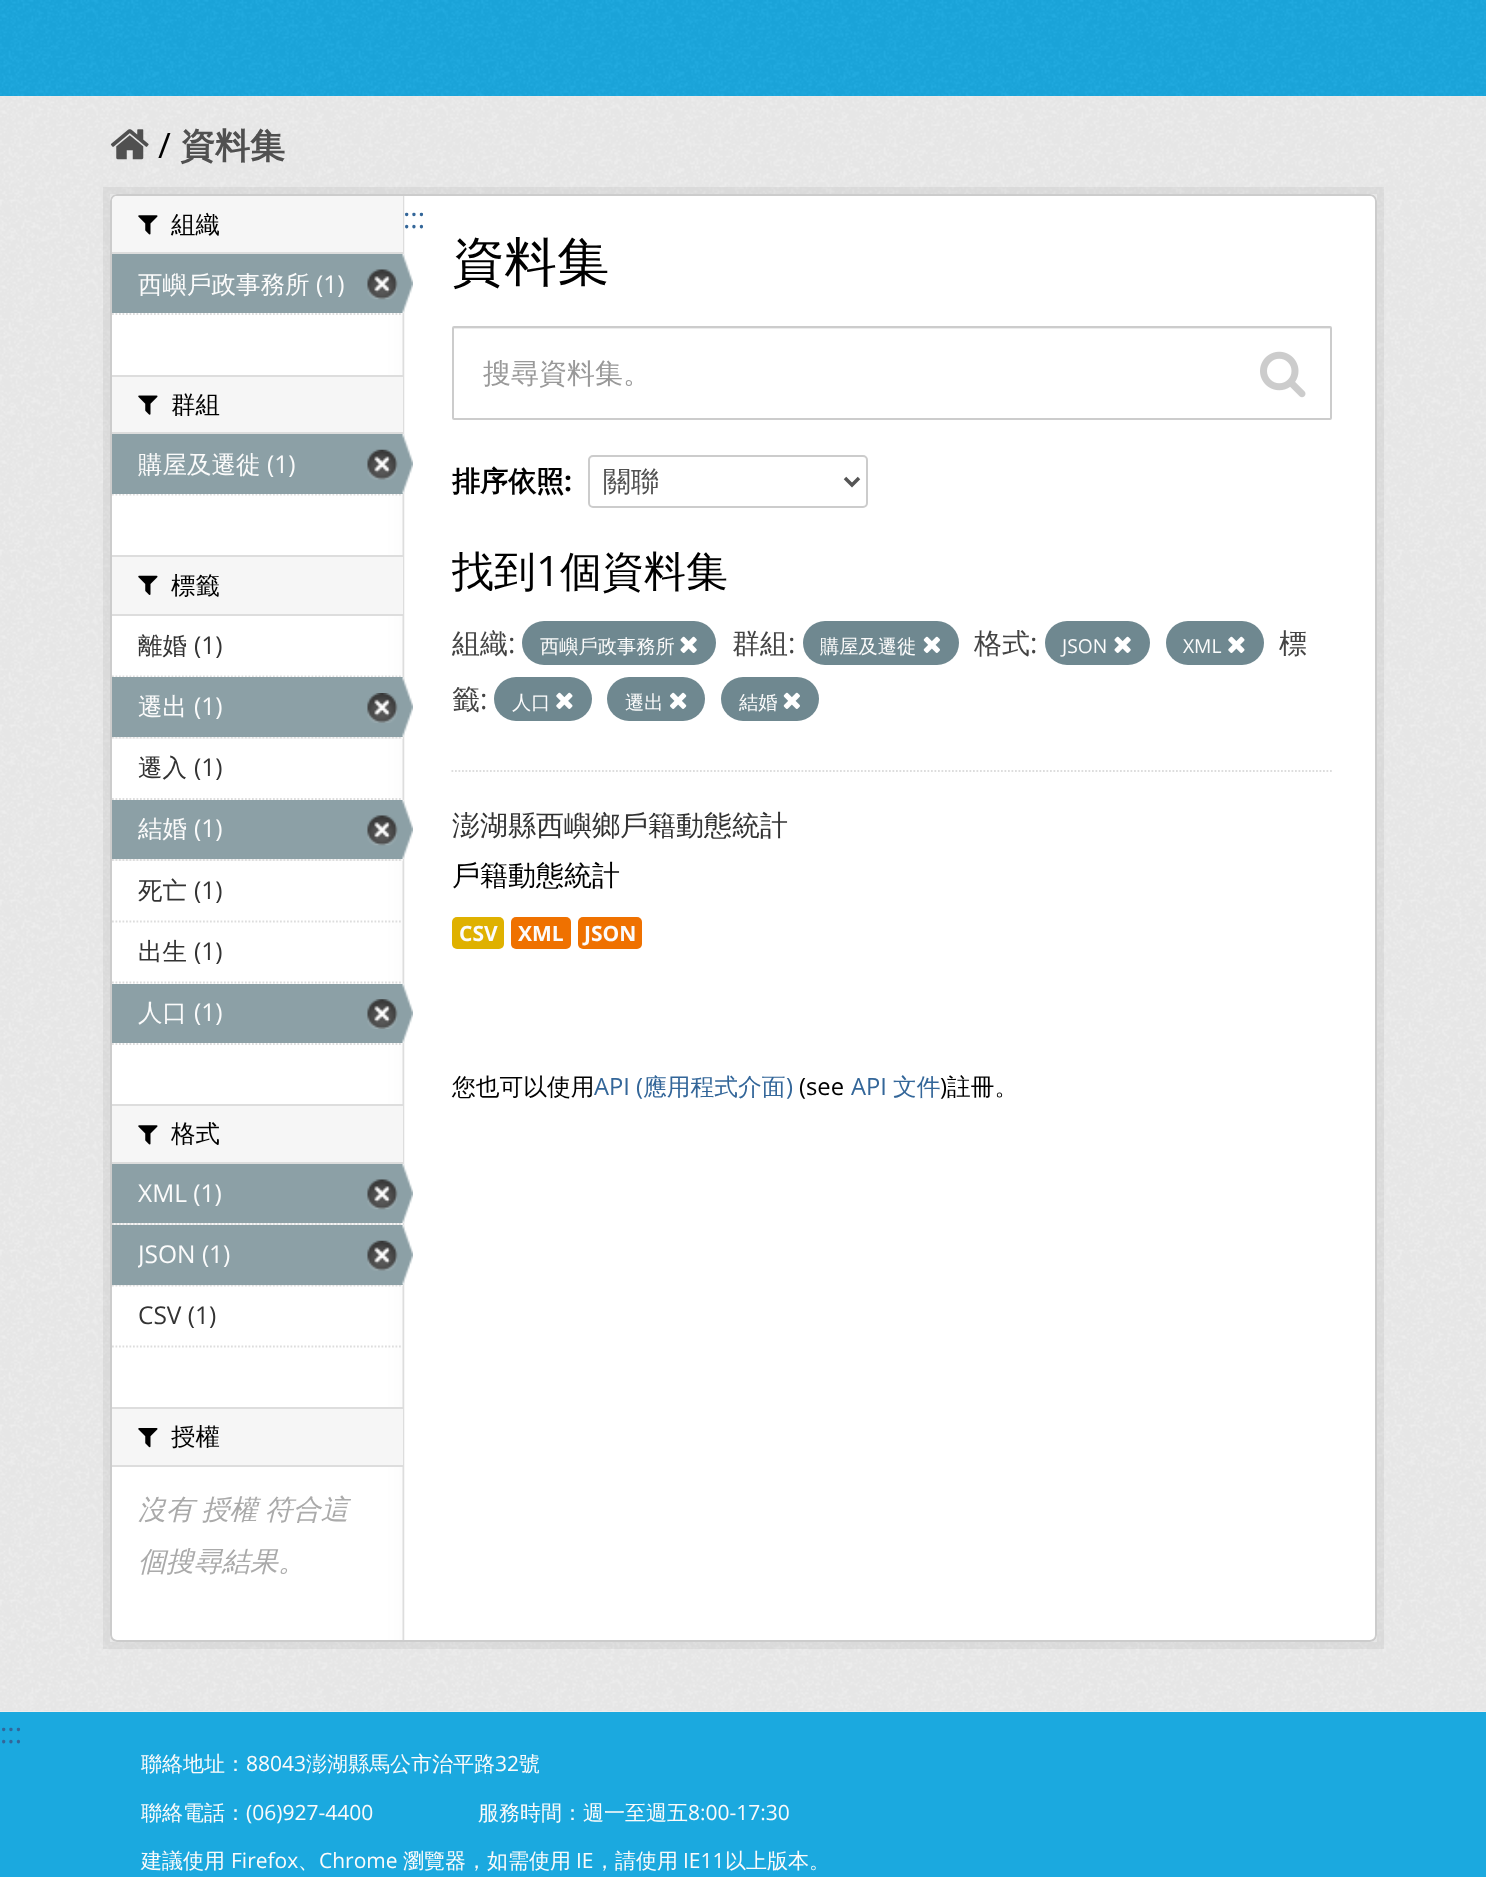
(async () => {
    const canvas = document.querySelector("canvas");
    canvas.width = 1486;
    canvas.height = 1877;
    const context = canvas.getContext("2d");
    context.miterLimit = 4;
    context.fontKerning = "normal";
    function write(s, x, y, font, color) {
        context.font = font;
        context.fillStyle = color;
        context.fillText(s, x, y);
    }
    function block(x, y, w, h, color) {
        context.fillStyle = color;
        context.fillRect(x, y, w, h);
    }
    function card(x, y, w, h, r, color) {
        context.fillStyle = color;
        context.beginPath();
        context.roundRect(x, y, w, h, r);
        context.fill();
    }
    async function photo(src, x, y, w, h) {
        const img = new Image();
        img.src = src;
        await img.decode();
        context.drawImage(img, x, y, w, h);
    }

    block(0, 0, 1486, 1877, "rgb(27, 169, 223)");
    await photo("media/1.png", 0, 0, 1486, 96);
    block(0, 96, 1486, 1616, "rgb(238, 238, 238)");
    await photo("media/2.png", 0, 96, 1486, 1615);
    await photo("media/3.png", 110, 129, 39, 31);
    write("/", 158, 158, "35px Open Sans", "rgb(0, 0, 0)");
    write("資料集", 180, 158, "bold 35px WenQuanYi Zen Hei", "rgb(80, 80, 80)");
    context.strokeStyle = "rgba(0, 0, 0, 0.05)";
    context.lineWidth = 7;
    context.strokeRect(106.5, 190.5, 1274, 1455);
    card(110, 194, 1267, 1448, 7, "rgb(255, 255, 255)");
    await photo("media/4.png", 111, 194, 294, 1448);
    context.beginPath();
    context.roundRect(111, 195, 1265, 1446, 6);
    context.strokeStyle = "rgb(204, 204, 204)";
    context.lineWidth = 2;
    context.stroke();
    context.fillStyle = "rgb(246, 246, 246)";
    context.beginPath();
    context.roundRect(112, 196, 291, 58, [5, 0, 0, 0]);
    context.fill();
    block(112, 252, 291, 2, "rgb(221, 221, 221)");
    await photo("media/5.png", 138, 215, 20, 20);
    write("組織", 171, 233, "500 24.5px WenQuanYi Zen Hei", "rgb(0, 0, 0)");
    block(112, 254, 291, 59, "rgb(140, 160, 166)");
    write("西嶼戶政事務所", 138, 293, "500 24.5px WenQuanYi Zen Hei", "rgb(251, 251, 251)");
    write("(1)", 316, 293, "24.5px Open Sans", "rgb(251, 251, 251)");
    await photo("media/6.png", 367, 269, 31, 31);
    await photo("media/7.png", 402, 254, 11, 59);
    context.beginPath();
    context.moveTo(112, 314);
    context.lineTo(402.5, 314);
    context.strokeStyle = "rgb(221, 221, 221)";
    context.lineWidth = 1.8;
    context.setLineDash([1.75, 1.75]);
    context.stroke();
    block(112, 377, 291, 55, "rgb(246, 246, 246)");
    block(112, 375, 291, 2, "rgb(221, 221, 221)");
    block(112, 432, 291, 2, "rgb(221, 221, 221)");
    await photo("media/8.png", 138, 395, 20, 20);
    write("群組", 171, 413, "500 24.5px WenQuanYi Zen Hei", "rgb(0, 0, 0)");
    context.beginPath();
    context.moveTo(112, 494.5);
    context.lineTo(402.5, 494.5);
    context.stroke();
    block(112, 434, 291, 60, "rgb(140, 160, 166)");
    write("購屋及遷徙", 138, 473, "500 24.5px WenQuanYi Zen Hei", "rgb(251, 251, 251)");
    write("(1)", 267, 473, "24.5px Open Sans", "rgb(251, 251, 251)");
    await photo("media/9.png", 367, 449, 31, 31);
    await photo("media/10.png", 402, 434, 11, 60);
    block(112, 557, 291, 57, "rgb(246, 246, 246)");
    block(112, 555, 291, 2, "rgb(221, 221, 221)");
    block(112, 614, 291, 2, "rgb(221, 221, 221)");
    await photo("media/11.png", 138, 575, 20, 20);
    write("標籤", 171, 594, "500 24.5px WenQuanYi Zen Hei", "rgb(0, 0, 0)");
    context.beginPath();
    context.moveTo(112, 676.5);
    context.lineTo(402.5, 676.5);
    context.stroke();
    write("離婚", 138, 654, "500 24.5px WenQuanYi Zen Hei", "rgb(51, 51, 51)");
    write("(1)", 194, 654, "24.5px Open Sans", "rgb(51, 51, 51)");
    block(112, 737, 291, 2, "rgb(246, 246, 246)");
    context.beginPath();
    context.moveTo(112, 737.5);
    context.lineTo(402.5, 737.5);
    context.stroke();
    block(112, 677, 291, 60, "rgb(140, 160, 166)");
    write("遷出", 138, 715, "500 24.5px WenQuanYi Zen Hei", "rgb(251, 251, 251)");
    write("(1)", 194, 715, "24.5px Open Sans", "rgb(251, 251, 251)");
    await photo("media/12.png", 367, 693, 31, 30);
    await photo("media/13.png", 402, 677, 11, 60);
    context.beginPath();
    context.moveTo(112, 799);
    context.lineTo(402.5, 799);
    context.stroke();
    write("遷入", 138, 776, "500 24.5px WenQuanYi Zen Hei", "rgb(51, 51, 51)");
    write("(1)", 194, 776, "24.5px Open Sans", "rgb(51, 51, 51)");
    block(112, 859, 291, 2, "rgb(246, 246, 246)");
    context.beginPath();
    context.moveTo(112, 860);
    context.lineTo(402.5, 860);
    context.stroke();
    block(112, 800, 291, 59, "rgb(140, 160, 166)");
    write("結婚", 138, 837, "500 24.5px WenQuanYi Zen Hei", "rgb(251, 251, 251)");
    write("(1)", 194, 837, "24.5px Open Sans", "rgb(251, 251, 251)");
    await photo("media/6.png", 367, 815, 31, 31);
    await photo("media/7.png", 402, 800, 11, 59);
    context.beginPath();
    context.moveTo(112, 921.5);
    context.lineTo(402.5, 921.5);
    context.stroke();
    write("死亡", 138, 899, "500 24.5px WenQuanYi Zen Hei", "rgb(51, 51, 51)");
    write("(1)", 194, 899, "24.5px Open Sans", "rgb(51, 51, 51)");
    context.beginPath();
    context.moveTo(112, 982.5);
    context.lineTo(402.5, 982.5);
    context.stroke();
    write("出生", 138, 960, "500 24.5px WenQuanYi Zen Hei", "rgb(51, 51, 51)");
    write("(1)", 194, 960, "24.5px Open Sans", "rgb(51, 51, 51)");
    block(112, 984, 291, 59, "rgb(140, 160, 166)");
    write("人口", 138, 1021, "500 24.5px WenQuanYi Zen Hei", "rgb(251, 251, 251)");
    write("(1)", 194, 1021, "24.5px Open Sans", "rgb(251, 251, 251)");
    await photo("media/14.png", 367, 999, 31, 30);
    await photo("media/15.png", 402, 983, 11, 60);
    context.beginPath();
    context.moveTo(112, 1044);
    context.lineTo(402.5, 1044);
    context.stroke();
    block(112, 1106, 291, 56, "rgb(246, 246, 246)");
    block(112, 1104, 291, 2, "rgb(221, 221, 221)");
    block(112, 1162, 291, 2, "rgb(221, 221, 221)");
    await photo("media/5.png", 138, 1125, 20, 20);
    write("格式", 171, 1142, "500 24.5px WenQuanYi Zen Hei", "rgb(0, 0, 0)");
    block(112, 1223, 291, 2, "rgb(246, 246, 246)");
    context.beginPath();
    context.moveTo(112, 1224);
    context.lineTo(402.5, 1224);
    context.stroke();
    block(112, 1164, 291, 59, "rgb(140, 160, 166)");
    write("XML (1)", 138, 1202, "24.5px Open Sans", "rgb(251, 251, 251)");
    await photo("media/6.png", 367, 1179, 31, 31);
    await photo("media/7.png", 402, 1164, 11, 59);
    block(113, 1285, 290, 1, "rgb(246, 246, 246)");
    context.beginPath();
    context.moveTo(112, 1285.5);
    context.lineTo(402.5, 1285.5);
    context.stroke();
    block(112, 1225, 291, 60, "rgb(140, 160, 166)");
    context.save();
    context.beginPath();
    context.rect(138, 1237, 238, 35);
    context.clip();
    write("JSON (1)", 138, 1263, "24.5px Open Sans", "rgb(251, 251, 251)");
    context.restore();
    await photo("media/9.png", 367, 1240, 31, 31);
    await photo("media/10.png", 402, 1225, 11, 60);
    write("CSV (1)", 138, 1324, "24.5px Open Sans", "rgb(51, 51, 51)");
    context.beginPath();
    context.moveTo(112, 1346.5);
    context.lineTo(402.5, 1346.5);
    context.stroke();
    block(112, 1409, 291, 56, "rgb(246, 246, 246)");
    block(112, 1407, 291, 2, "rgb(221, 221, 221)");
    block(112, 1465, 291, 2, "rgb(221, 221, 221)");
    await photo("media/16.png", 138, 1428, 20, 20);
    write("授權", 171, 1445, "500 24.5px WenQuanYi Zen Hei", "rgb(0, 0, 0)");
    context.wordSpacing = "-1px";
    write("沒有 授權 符合這", 138, 1519, "italic 500 28px WenQuanYi Zen Hei", "rgb(170, 170, 170)");
    context.wordSpacing = "0px";
    write("個搜尋結果。", 138, 1571, "italic 500 28px WenQuanYi Zen Hei", "rgb(170, 170, 170)");
    write(":::", 403, 228, "28px Open Sans", "rgb(51, 102, 153)");
    write("資料集", 452, 280, "500 52.5px WenQuanYi Zen Hei", "rgb(0, 0, 0)");
    context.beginPath();
    context.moveTo(451.5, 771);
    context.lineTo(1332, 771);
    context.stroke();
    block(453, 328, 877, 1, "rgb(236, 236, 236)");
    context.beginPath();
    context.roundRect(453, 327, 878, 92, 1);
    context.strokeStyle = "rgb(204, 204, 204)";
    context.lineWidth = 2;
    context.setLineDash([]);
    context.stroke();
    write("搜尋資料集。", 483, 383, "500 28px WenQuanYi Zen Hei", "rgb(153, 153, 153)");
    await photo("media/17.png", 1260, 351, 46, 47);
    write("排序依照", 452, 491, "bold 28px WenQuanYi Zen Hei", "rgb(0, 0, 0)");
    write(":", 564, 491, "bold 28px Open Sans", "rgb(0, 0, 0)");
    context.beginPath();
    context.roundRect(589, 456, 278, 51, 4);
    context.stroke();
    context.beginPath();
    context.moveTo(845, 478);
    context.lineTo(852, 485);
    context.lineTo(859, 478);
    context.strokeStyle = "rgb(85, 85, 85)";
    context.lineWidth = 3.5;
    context.stroke();
    write("關聯", 603, 491, "500 28px WenQuanYi Zen Hei", "rgb(80, 80, 80)");
    write("找到", 452, 586, "500 42px WenQuanYi Zen Hei", "rgb(0, 0, 0)");
    write("1", 536, 586, "42px Open Sans", "rgb(0, 0, 0)");
    write("個資料集", 560, 586, "500 42px WenQuanYi Zen Hei", "rgb(0, 0, 0)");
    write("組織", 452, 653, "500 28px WenQuanYi Zen Hei", "rgb(68, 68, 68)");
    write(":", 508, 653, "28px Open Sans", "rgb(68, 68, 68)");
    card(522, 621, 194, 44, 22, "rgb(111, 136, 144)");
    write("西嶼戶政事務所", 540, 653, "500 19.25px WenQuanYi Zen Hei", "rgb(251, 251, 251)");
    await photo("media/18.png", 680, 636, 17, 17);
    write("群組", 732, 653, "500 28px WenQuanYi Zen Hei", "rgb(68, 68, 68)");
    write(":", 788, 653, "28px Open Sans", "rgb(68, 68, 68)");
    card(803, 621, 156, 44, 22, "rgb(111, 136, 144)");
    write("購屋及遷徙", 820, 653, "500 19.25px WenQuanYi Zen Hei", "rgb(251, 251, 251)");
    await photo("media/19.png", 923, 636, 17, 17);
    write("格式", 974, 653, "500 28px WenQuanYi Zen Hei", "rgb(68, 68, 68)");
    write(":", 1030, 653, "28px Open Sans", "rgb(68, 68, 68)");
    card(1045, 621, 105, 44, 22, "rgb(111, 136, 144)");
    write("JSON", 1062, 653, "19.25px Open Sans", "rgb(251, 251, 251)");
    await photo("media/18.png", 1114, 636, 17, 17);
    card(1166, 621, 98, 44, 22, "rgb(111, 136, 144)");
    write("XML", 1183, 653, "19.25px Open Sans", "rgb(251, 251, 251)");
    await photo("media/20.png", 1228, 636, 17, 17);
    write("標", 1279, 653, "500 28px WenQuanYi Zen Hei", "rgb(68, 68, 68)");
    write("籤", 452, 709, "500 28px WenQuanYi Zen Hei", "rgb(68, 68, 68)");
    write(":", 480, 709, "28px Open Sans", "rgb(68, 68, 68)");
    card(494, 677, 98, 44, 22, "rgb(111, 136, 144)");
    write("人口", 512, 709, "500 19.25px WenQuanYi Zen Hei", "rgb(251, 251, 251)");
    await photo("media/20.png", 556, 692, 17, 17);
    card(607, 677, 98, 44, 22, "rgb(111, 136, 144)");
    write("遷出", 625, 709, "500 19.25px WenQuanYi Zen Hei", "rgb(251, 251, 251)");
    await photo("media/21.png", 670, 692, 17, 17);
    card(721, 677, 98, 44, 22, "rgb(111, 136, 144)");
    write("結婚", 739, 709, "500 19.25px WenQuanYi Zen Hei", "rgb(251, 251, 251)");
    await photo("media/19.png", 783, 692, 17, 17);
    write("澎湖縣西嶼鄉戶籍動態統計", 452, 835, "500 28px WenQuanYi Zen Hei", "rgb(51, 51, 51)");
    write("戶籍動態統計", 452, 885, "500 28px WenQuanYi Zen Hei", "rgb(0, 0, 0)");
    card(452, 917, 52, 32, 5, "rgb(223, 177, 0)");
    write("CSV", 459, 941, "bold 21px Open Sans", "rgb(251, 251, 251)");
    card(511, 917, 60, 32, 5, "rgb(239, 113, 0)");
    write("XML", 518, 941, "bold 21px Open Sans", "rgb(251, 251, 251)");
    card(578, 917, 64, 32, 5, "rgb(239, 113, 0)");
    write("JSON", 584, 941, "bold 21px Open Sans", "rgb(251, 251, 251)");
    write("您也可以使用", 452, 1095, "500 23.75px WenQuanYi Zen Hei", "rgb(0, 0, 0)");
    write("API (", 594, 1095, "23.75px Open Sans", "rgb(51, 102, 153)");
    write("應用程式介面", 643, 1095, "500 23.75px WenQuanYi Zen Hei", "rgb(51, 102, 153)");
    write(")", 786, 1095, "23.75px Open Sans", "rgb(51, 102, 153)");
    write("(see", 799, 1095, "23.75px Open Sans", "rgb(0, 0, 0)");
    write("API", 851, 1095, "23.75px Open Sans", "rgb(51, 102, 153)");
    write("文件", 893, 1095, "500 23.75px WenQuanYi Zen Hei", "rgb(51, 102, 153)");
    write(")", 940, 1095, "23.75px Open Sans", "rgb(0, 0, 0)");
    write("註冊。", 947, 1095, "500 23.75px WenQuanYi Zen Hei", "rgb(0, 0, 0)");
    write(":::", 0, 1743, "28px Open Sans", "rgb(51, 102, 153)");
    write("聯絡地址：", 141, 1771, "500 21px WenQuanYi Zen Hei", "rgb(251, 251, 251)");
    write("88043", 246, 1771, "21px Open Sans", "rgb(251, 251, 251)");
    write("澎湖縣馬公市治平路", 306, 1771, "500 21px WenQuanYi Zen Hei", "rgb(251, 251, 251)");
    write("32", 495, 1771, "21px Open Sans", "rgb(251, 251, 251)");
    write("號", 519, 1771, "500 21px WenQuanYi Zen Hei", "rgb(251, 251, 251)");
    write("聯絡電話：", 141, 1820, "500 21px WenQuanYi Zen Hei", "rgb(251, 251, 251)");
    write("(06)927-4400", 246, 1820, "21px Open Sans", "rgb(251, 251, 251)");
    write("服務時間：週一至週五", 478, 1820, "500 21px WenQuanYi Zen Hei", "rgb(251, 251, 251)");
    write("8:00-17:30", 688, 1820, "21px Open Sans", "rgb(251, 251, 251)");
    write("建議使用", 141, 1868, "500 21px WenQuanYi Zen Hei", "rgb(251, 251, 251)");
    write("Firefox", 231, 1868, "21px Open Sans", "rgb(251, 251, 251)");
    write("Chrome", 319, 1868, "21px Open Sans", "rgb(251, 251, 251)");
    write("瀏覽器，如需使用", 403, 1868, "500 21px WenQuanYi Zen Hei", "rgb(251, 251, 251)");
    write("IE", 576, 1868, "21px Open Sans", "rgb(251, 251, 251)");
    write("，請使用", 594, 1868, "500 21px WenQuanYi Zen Hei", "rgb(251, 251, 251)");
    write("IE11", 683, 1868, "21px Open Sans", "rgb(251, 251, 251)");
    write("以上版本。", 725, 1868, "500 21px WenQuanYi Zen Hei", "rgb(251, 251, 251)");
    write("、", 298, 1868, "500 21px WenQuanYi Zen Hei", "rgb(251, 251, 251)");
})();
